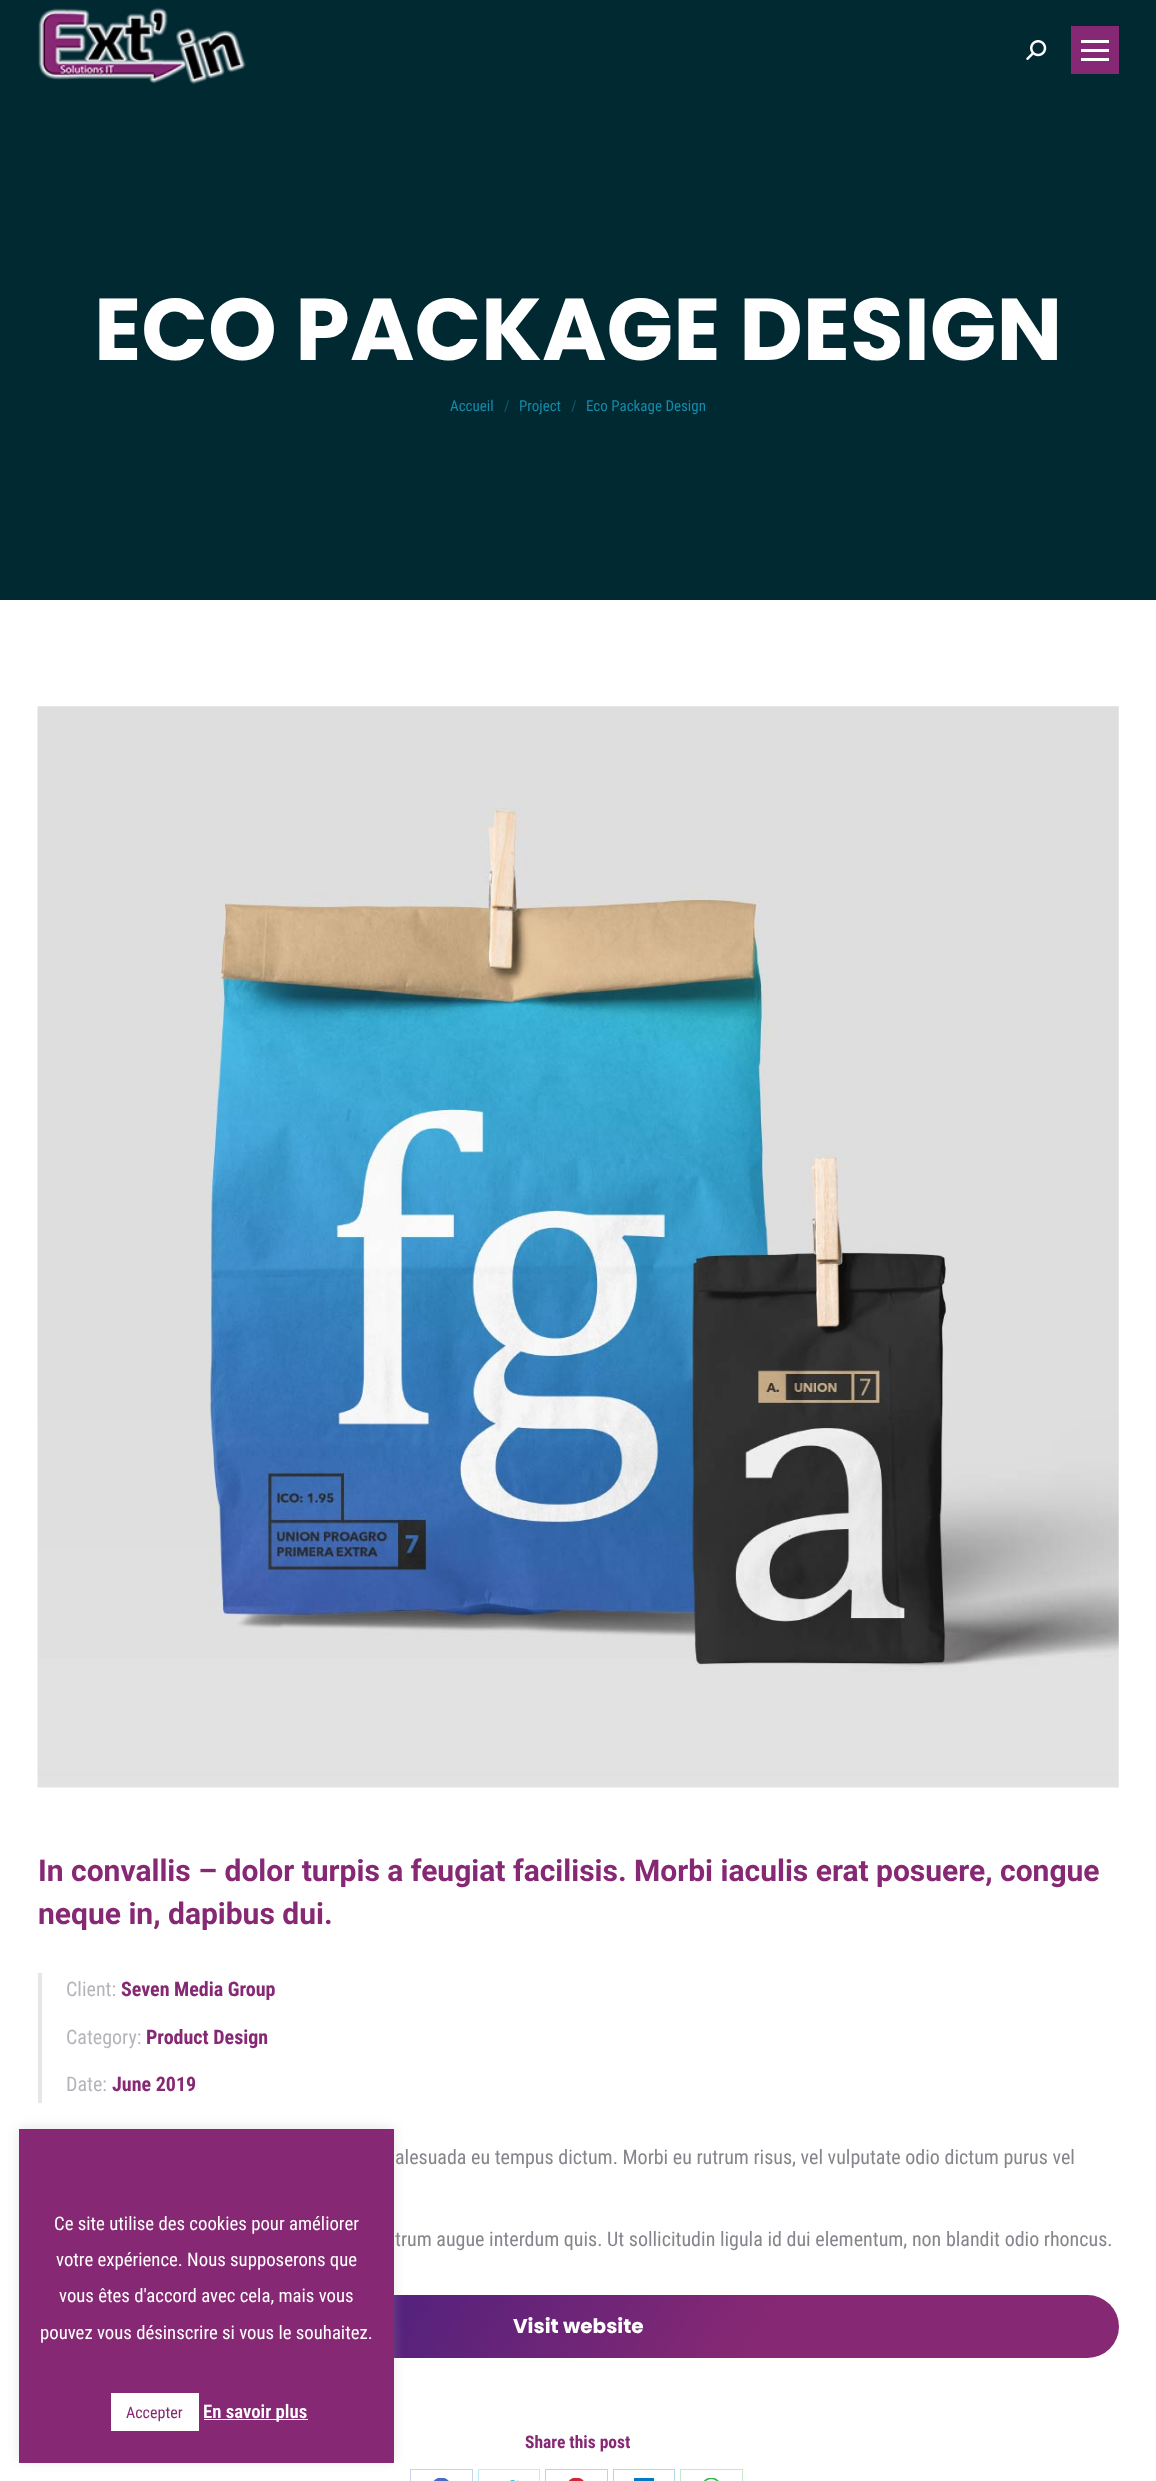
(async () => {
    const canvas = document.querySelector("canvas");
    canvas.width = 1156;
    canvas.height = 2481;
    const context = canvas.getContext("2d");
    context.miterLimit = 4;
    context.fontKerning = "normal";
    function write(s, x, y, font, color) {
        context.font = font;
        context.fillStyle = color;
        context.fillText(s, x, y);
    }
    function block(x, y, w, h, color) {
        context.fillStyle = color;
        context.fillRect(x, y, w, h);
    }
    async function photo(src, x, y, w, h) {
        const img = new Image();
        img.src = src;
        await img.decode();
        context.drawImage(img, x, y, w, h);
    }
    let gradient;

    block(0, 0, 1156, 2481, "rgb(255, 255, 255)");
    block(0, 0, 1156, 600, "rgb(0, 41, 50)");
    await photo("media/1.png", 38, 7, 208, 78);
    await photo("media/2.png", 1026, 40, 21, 20);
    block(1071, 26, 48, 48, "rgb(134, 40, 116)");
    block(1081, 40, 28, 3, "rgb(255, 255, 255)");
    block(1081, 49, 28, 3, "rgb(255, 255, 255)");
    block(1081, 58, 28, 3, "rgb(255, 255, 255)");
    write("ECO PACKAGE DESIGN", 94, 360, "bold 87.5px Poppins", "rgb(255, 255, 255)");
    write("Accueil", 450, 411, "15px Roboto Condensed", "rgb(20, 139, 169)");
    write("/", 504, 411, "15px Roboto Condensed", "rgb(10, 90, 110)");
    write("Project", 519, 411, "15px Roboto Condensed", "rgb(20, 139, 169)");
    write("/", 571, 411, "15px Roboto Condensed", "rgb(10, 90, 110)");
    write("Eco Package Design", 586, 411, "15px Roboto Condensed", "rgb(20, 139, 169)");
    await photo("media/3.png", 37, 706, 1082, 1082);
    write("In convallis – dolor turpis a feugiat facilisis. Morbi iaculis erat posuere, congue", 38, 1881, "bold 30px Roboto", "rgb(134, 40, 115)");
    write("neque in, dapibus dui.", 38, 1924, "bold 30px Roboto", "rgb(134, 40, 115)");
    block(38, 1973, 4, 130, "rgb(230, 230, 230)");
    write("Client:", 66, 1996, "20px Roboto Condensed", "rgb(180, 181, 187)");
    write("Seven Media Group", 121, 1996, "bold 20px Roboto Condensed", "rgb(134, 40, 115)");
    write("Category:", 66, 2044, "20px Roboto Condensed", "rgb(180, 181, 187)");
    write("Product Design", 146, 2044, "bold 20px Roboto Condensed", "rgb(134, 40, 115)");
    write("Date:", 66, 2091, "20px Roboto Condensed", "rgb(180, 181, 187)");
    write("June 2019", 112, 2091, "bold 20px Roboto Condensed", "rgb(134, 40, 115)");
    write("alesuada eu tempus dictum. Morbi eu rutrum risus, vel vulputate odio dictum purus vel", 395, 2164, "20px Roboto Condensed", "rgb(133, 134, 140)");
    write("trum augue interdum quis. Ut sollicitudin ligula id dui elementum, non blandit odio rhoncus.", 395, 2246, "20px Roboto Condensed", "rgb(133, 134, 140)");
    gradient = context.createLinearGradient(964, 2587, 192, 2066);
    gradient.addColorStop(0.34, "rgb(134, 40, 115)");
    gradient.addColorStop(0.92, "rgb(48, 29, 132)");
    context.fillStyle = gradient;
    context.beginPath();
    context.roundRect(38, 2295, 1081, 63, 31.5);
    context.fill();
    write("Visit website", 513, 2333, "bold 20px Poppins", "rgb(255, 255, 255)");
    write("Share this post", 525, 2448, "bold 17.5px Roboto Condensed", "rgb(134, 40, 115)");
    context.strokeStyle = "rgb(201, 210, 238)";
    context.strokeRect(410.5, 2469.5, 62, 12);
    await photo("media/4.png", 433, 2478, 16, 3);
    context.strokeStyle = "rgb(191, 236, 249)";
    context.strokeRect(478.5, 2469.5, 61, 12);
    await photo("media/5.png", 500, 2480, 19, 1);
    context.strokeStyle = "rgb(241, 191, 194)";
    context.strokeRect(545.5, 2469.5, 62, 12);
    await photo("media/6.png", 568, 2478, 16, 3);
    context.strokeStyle = "rgb(179, 215, 238)";
    context.strokeRect(613.5, 2469.5, 61, 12);
    block(634, 2478, 20, 3, "rgb(0, 123, 199)");
    context.strokeStyle = "rgb(195, 233, 202)";
    context.strokeRect(680.5, 2469.5, 62, 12);
    await photo("media/7.png", 703, 2478, 16, 3);
    context.fillStyle = "rgba(172, 171, 171, 0.3)";
    context.filter = "blur(6px)";
    context.beginPath();
    context.rect(19, 2128, 375, 333);
    context.fill();
    context.filter = "none";
    block(19, 2129, 375, 334, "rgb(134, 40, 115)");
    write("Ce site utilise des cookies pour améliorer", 54, 2230, "18.75px Roboto Condensed", "rgb(255, 255, 255)");
    write("votre expérience. Nous supposerons que", 56, 2266, "18.75px Roboto Condensed", "rgb(255, 255, 255)");
    write("vous êtes d'accord avec cela, mais vous", 59, 2302, "18.75px Roboto Condensed", "rgb(255, 255, 255)");
    write("pouvez vous désinscrire si vous le souhaitez.", 40, 2339, "18.75px Roboto Condensed", "rgb(255, 255, 255)");
    block(111, 2393, 88, 38, "rgb(255, 255, 255)");
    write("Accepter", 126, 2418, "16px Roboto Condensed", "rgb(134, 40, 115)");
    block(204, 2419, 104, 1, "rgb(255, 255, 255)");
    write("En savoir plus", 203, 2418, "600 18.75px Roboto Condensed", "rgb(255, 255, 255)");
})();
